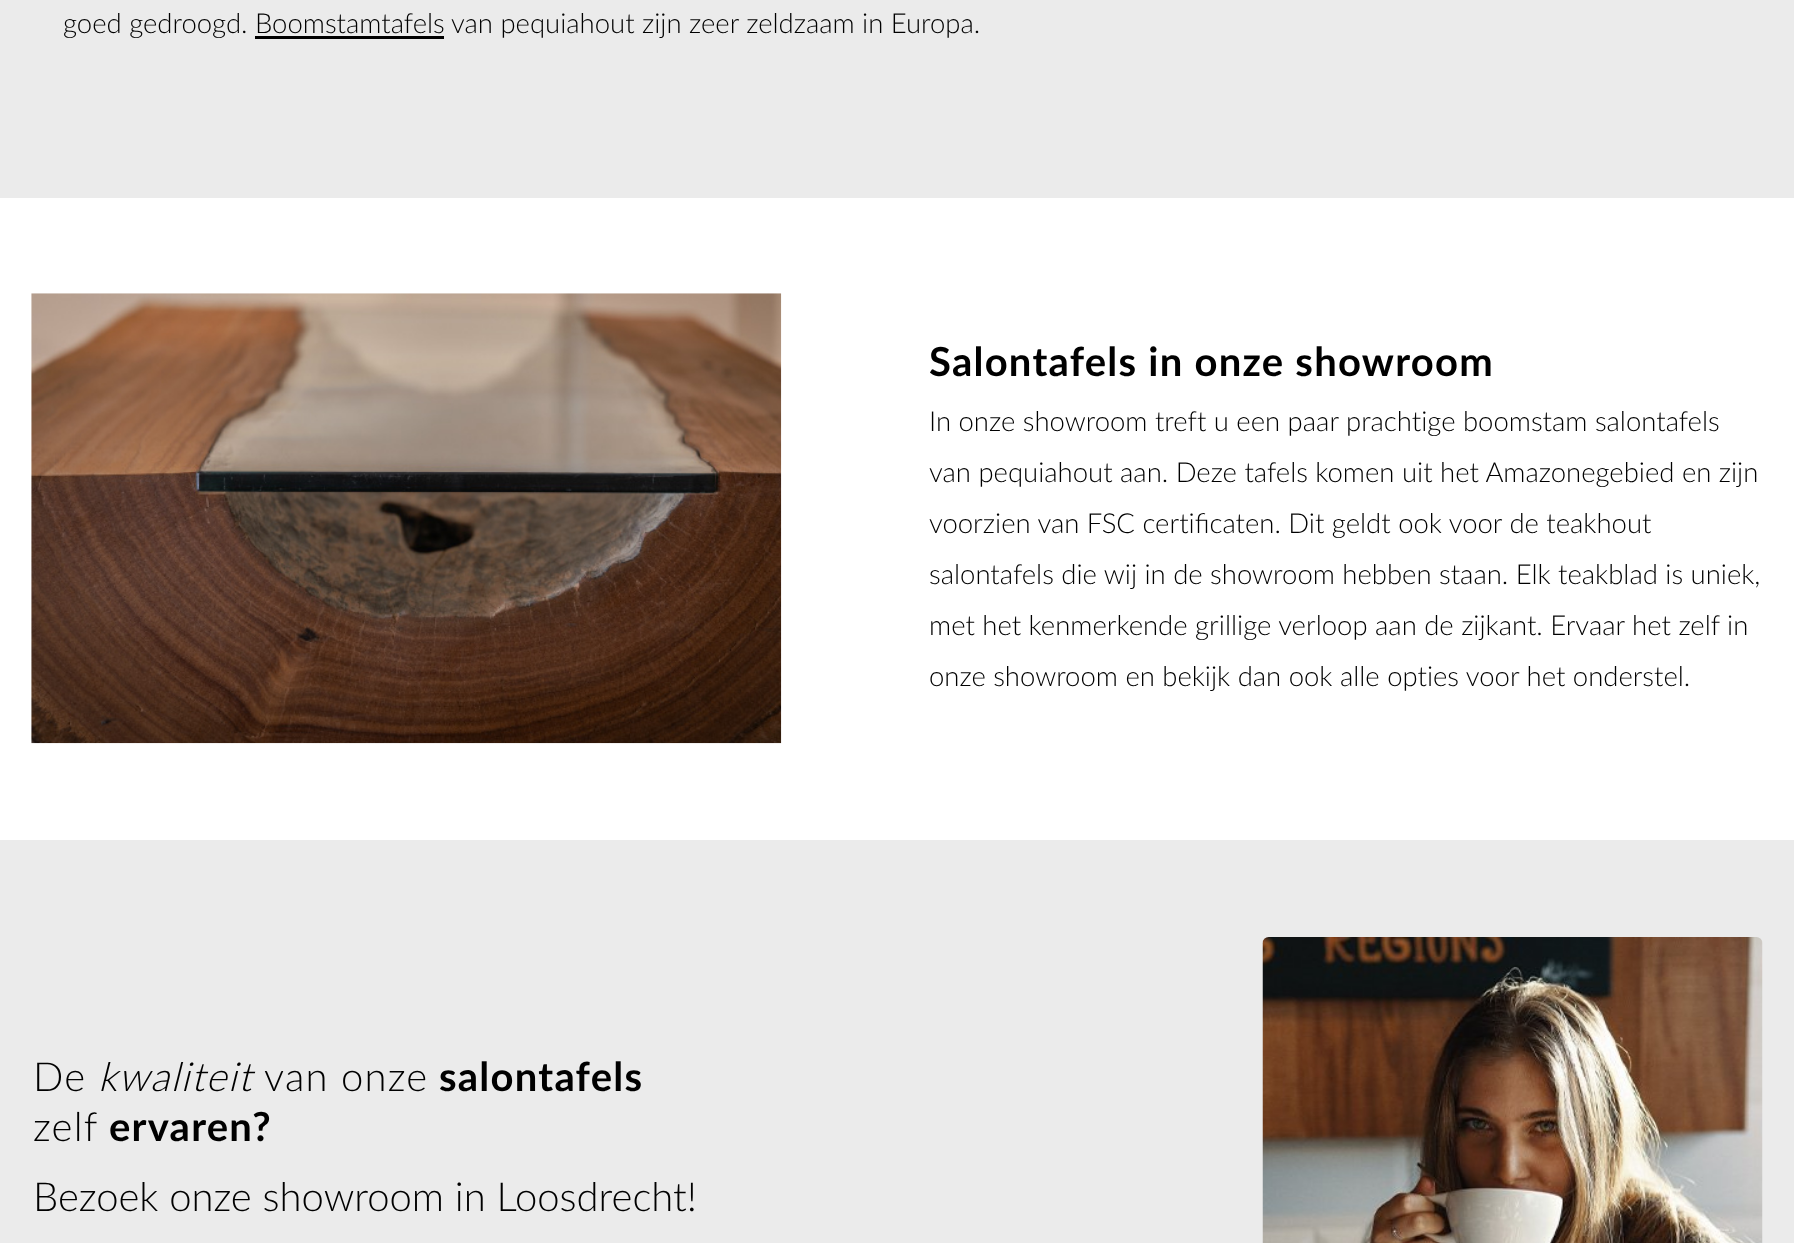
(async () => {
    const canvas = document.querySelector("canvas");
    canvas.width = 1794;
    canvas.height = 1243;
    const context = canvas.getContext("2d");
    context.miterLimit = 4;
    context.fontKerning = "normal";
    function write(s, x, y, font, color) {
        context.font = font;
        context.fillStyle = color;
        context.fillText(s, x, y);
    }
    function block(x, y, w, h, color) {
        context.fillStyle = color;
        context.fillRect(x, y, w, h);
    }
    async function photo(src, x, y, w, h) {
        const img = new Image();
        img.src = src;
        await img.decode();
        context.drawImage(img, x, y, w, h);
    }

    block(0, 0, 1794, 1243, "rgb(255, 255, 255)");
    block(0, 0, 1794, 198, "rgb(235, 235, 235)");
    write("goed gedroogd. Boomstamtafels", 63, 33, "300 27.5px Lato", "rgb(0, 0, 0)");
    write("van pequiahout zijn zeer zeldzaam in Europa.", 451, 33, "300 27.5px Lato", "rgb(0, 0, 0)");
    block(255, 36, 189, 3, "rgb(0, 0, 0)");
    await photo("media/1.png", 31, 293, 751, 451);
    context.letterSpacing = "1.25px";
    write("Salontafels in onze showroom", 929, 376, "bold 40px Lato", "rgb(0, 0, 0)");
    context.letterSpacing = "0px";
    write("In onze showroom treft u een paar prachtige boomstam salontafels", 929, 431, "300 27.5px Lato", "rgb(0, 0, 0)");
    write("van pequiahout aan. Deze tafels komen uit het Amazonegebied en zijn", 929, 482, "300 27.5px Lato", "rgb(0, 0, 0)");
    write("voorzien van FSC certificaten. Dit geldt ook voor de teakhout", 929, 533, "300 27.5px Lato", "rgb(0, 0, 0)");
    write("salontafels die wij in de showroom hebben staan. Elk teakblad is uniek,", 929, 584, "300 27.5px Lato", "rgb(0, 0, 0)");
    write("met het kenmerkende grillige verloop aan de zijkant. Ervaar het zelf in", 929, 635, "300 27.5px Lato", "rgb(0, 0, 0)");
    write("onze showroom en bekijk dan ook alle opties voor het onderstel.", 929, 686, "300 27.5px Lato", "rgb(0, 0, 0)");
    block(0, 840, 1794, 403, "rgb(235, 235, 235)");
    context.letterSpacing = "1.25px";
    write("De", 33, 1091, "300 40px Lato", "rgb(0, 0, 0)");
    write("kwaliteit", 98, 1091, "italic 300 40px Lato", "rgb(0, 0, 0)");
    write("van onze", 264, 1091, "300 40px Lato", "rgb(0, 0, 0)");
    write("salontafels", 439, 1091, "bold 40px Lato", "rgb(0, 0, 0)");
    write("zelf", 33, 1141, "300 40px Lato", "rgb(0, 0, 0)");
    write("ervaren?", 109, 1141, "bold 40px Lato", "rgb(0, 0, 0)");
    context.letterSpacing = "0px";
    write("Bezoek onze showroom in Loosdrecht!", 33, 1211, "300 40px Lato", "rgb(0, 0, 0)");
    await photo("media/2.png", 1262, 937, 501, 306);
})();
